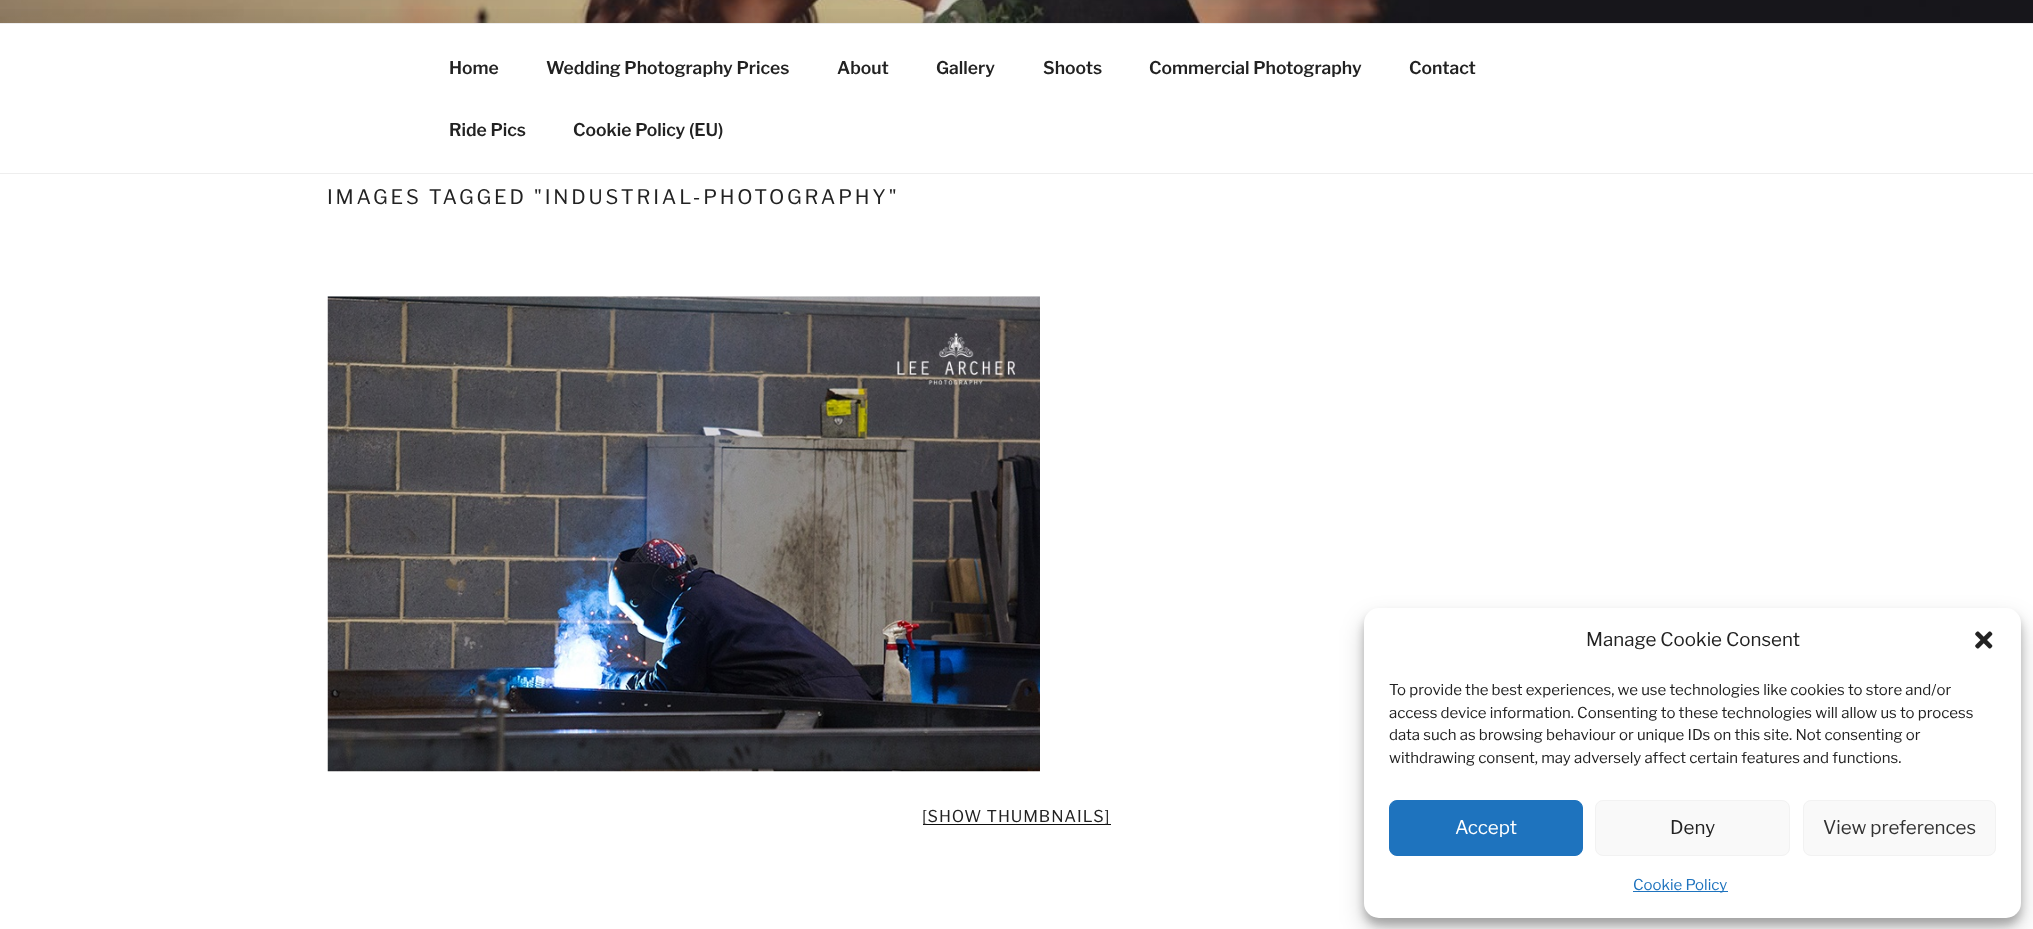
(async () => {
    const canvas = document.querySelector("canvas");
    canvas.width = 2033;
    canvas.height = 929;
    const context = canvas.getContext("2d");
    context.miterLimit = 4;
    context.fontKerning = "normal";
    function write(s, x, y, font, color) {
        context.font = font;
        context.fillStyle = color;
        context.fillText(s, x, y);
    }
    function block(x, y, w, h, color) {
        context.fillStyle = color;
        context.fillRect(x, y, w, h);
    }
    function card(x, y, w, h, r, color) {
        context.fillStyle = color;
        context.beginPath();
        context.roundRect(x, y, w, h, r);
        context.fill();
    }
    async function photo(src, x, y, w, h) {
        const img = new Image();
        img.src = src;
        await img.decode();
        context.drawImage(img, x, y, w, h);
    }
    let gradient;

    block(0, 0, 2033, 929, "rgb(255, 255, 255)");
    await photo("media/1.png", 0, 0, 2033, 23);
    gradient = context.createLinearGradient(1017, 0, 1017, 174);
    gradient.addColorStop(0, "rgba(0, 0, 0, 0)");
    gradient.addColorStop(0.75, "rgba(0, 0, 0, 0.3)");
    gradient.addColorStop(1, "rgba(0, 0, 0, 0.3)");
    context.fillStyle = gradient;
    context.fillRect(0, 9, 1372, 14);
    block(0, 23, 2033, 1, "rgb(238, 238, 238)");
    block(0, 173, 2033, 1, "rgb(238, 238, 238)");
    write("Home", 449, 74, "100 17.5px 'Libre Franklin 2'", "rgb(34, 34, 34)");
    write("Wedding Photography Prices", 546, 74, "100 17.5px 'Libre Franklin 2'", "rgb(34, 34, 34)");
    write("About", 837, 74, "100 17.5px 'Libre Franklin 2'", "rgb(34, 34, 34)");
    write("Gallery", 936, 74, "100 17.5px 'Libre Franklin 2'", "rgb(34, 34, 34)");
    write("Shoots", 1043, 74, "100 17.5px 'Libre Franklin 2'", "rgb(34, 34, 34)");
    write("Commercial Photography", 1149, 74, "100 17.5px 'Libre Franklin 2'", "rgb(34, 34, 34)");
    write("Contact", 1409, 74, "100 17.5px 'Libre Franklin 2'", "rgb(34, 34, 34)");
    write("Ride Pics", 449, 136, "100 17.5px 'Libre Franklin 2'", "rgb(34, 34, 34)");
    write("Cookie Policy (EU)", 573, 136, "100 17.5px 'Libre Franklin 2'", "rgb(34, 34, 34)");
    context.letterSpacing = "2.8px";
    write("IMAGES TAGGED \"INDUSTRIAL-PHOTOGRAPHY\"", 327, 204, "100 20px Libre Franklin", "rgb(34, 34, 34)");
    await photo("media/2.png", 327, 296, 713, 476);
    block(923, 824, 188, 1, "rgb(15, 15, 15)");
    context.letterSpacing = "0.9px";
    write("[SHOW THUMBNAILS]", 922, 822, "100 16.25px Libre Franklin", "rgb(34, 34, 34)");
    context.fillStyle = "rgba(0, 0, 0, 0.23)";
    context.filter = "blur(4px)";
    context.beginPath();
    context.roundRect(1364, 615, 657, 310, 15);
    context.fill();
    context.filter = "none";
    context.fillStyle = "rgba(0, 0, 0, 0.19)";
    context.filter = "blur(12.5px)";
    context.beginPath();
    context.roundRect(1364, 620, 657, 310, 15);
    context.fill();
    context.filter = "none";
    card(1364, 608, 657, 310, 15, "rgb(255, 255, 255)");
    context.letterSpacing = "0px";
    write("Manage Cookie Consent", 1586, 646, "100 18.75px Libre Franklin", "rgb(34, 34, 34)");
    await photo("media/3.png", 1975, 631, 18, 18);
    write("To provide the best experiences, we use technologies like cookies to store and/or", 1389, 695, "100 15px Libre Franklin", "rgb(34, 34, 34)");
    write("access device information. Consenting to these technologies will allow us to process", 1389, 718, "100 15px Libre Franklin", "rgb(34, 34, 34)");
    write("data such as browsing behaviour or unique IDs on this site. Not consenting or", 1389, 740, "100 15px Libre Franklin", "rgb(34, 34, 34)");
    write("withdrawing consent, may adversely affect certain features and functions.", 1389, 763, "100 15px Libre Franklin", "rgb(34, 34, 34)");
    context.fillStyle = "rgb(30, 115, 190)";
    context.beginPath();
    context.roundRect(1389.5, 800.5, 193, 55, 7.5);
    context.fill();
    context.strokeStyle = "rgb(30, 115, 190)";
    context.stroke();
    write("Accept", 1455, 834, "100 18.75px Libre Franklin", "rgb(255, 255, 255)");
    context.fillStyle = "rgb(249, 249, 249)";
    context.beginPath();
    context.roundRect(1595.5, 800.5, 194, 55, 7.5);
    context.fill();
    context.strokeStyle = "rgb(242, 242, 242)";
    context.stroke();
    write("Deny", 1670, 834, "100 18.75px Libre Franklin", "rgb(34, 34, 34)");
    context.fillStyle = "rgb(249, 249, 249)";
    context.beginPath();
    context.roundRect(1803.5, 800.5, 192, 55, 7.5);
    context.fill();
    context.stroke();
    write("View preferences", 1823, 834, "100 18.75px Libre Franklin", "rgb(51, 51, 51)");
    block(1633, 891, 95, 1, "rgb(30, 115, 190)");
    write("Cookie Policy", 1633, 890, "100 15px Libre Franklin", "rgb(30, 115, 190)");
})();
